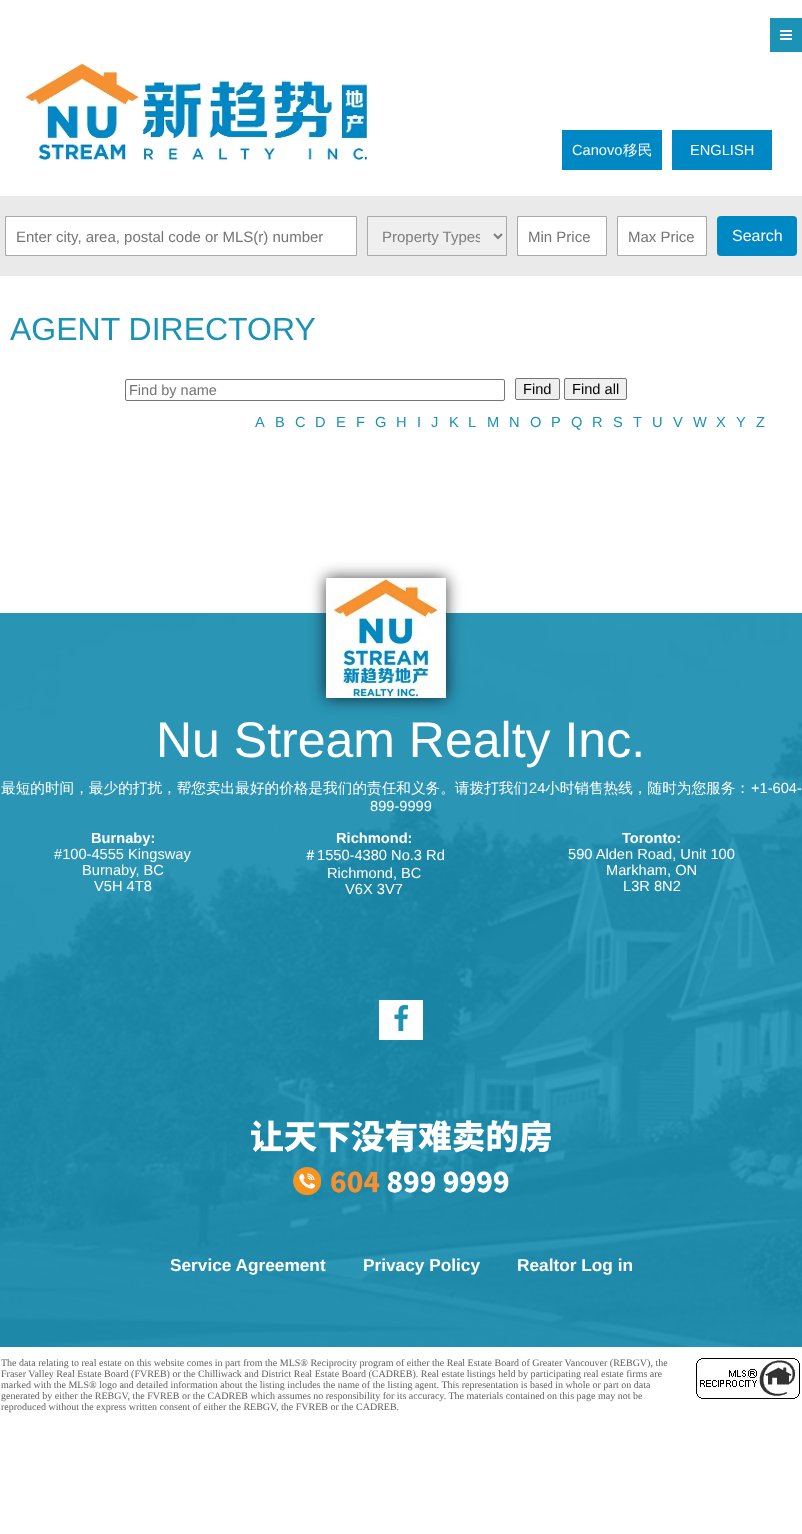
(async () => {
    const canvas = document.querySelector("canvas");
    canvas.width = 802;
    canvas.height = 1534;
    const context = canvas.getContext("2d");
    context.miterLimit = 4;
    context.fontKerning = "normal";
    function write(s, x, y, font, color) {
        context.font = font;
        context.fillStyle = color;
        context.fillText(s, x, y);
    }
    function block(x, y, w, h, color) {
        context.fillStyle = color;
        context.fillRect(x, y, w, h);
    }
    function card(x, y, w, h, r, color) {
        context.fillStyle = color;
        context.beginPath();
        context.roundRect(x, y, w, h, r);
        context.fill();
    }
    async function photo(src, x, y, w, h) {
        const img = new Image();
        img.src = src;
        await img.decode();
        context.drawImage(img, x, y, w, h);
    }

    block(0, 0, 802, 1534, "rgb(255, 255, 255)");
    block(770, 18, 32, 34, "rgb(27, 146, 182)");
    await photo("media/1.png", 780, 30, 12, 10);
    await photo("media/2.png", 25, 62, 344, 100);
    block(562, 130, 100, 40, "rgb(0, 136, 197)");
    write("Canovo", 572, 155, "14.65px Liberation Sans", "rgb(255, 255, 255)");
    write("移民", 623, 155, "500 14.65px WenQuanYi Zen Hei", "rgb(255, 255, 255)");
    block(672, 130, 100, 40, "rgb(0, 136, 197)");
    write("ENGLISH", 690, 155, "14.65px Liberation Sans", "rgb(255, 255, 255)");
    block(0, 196, 802, 80, "rgb(234, 234, 234)");
    context.fillStyle = "rgb(255, 255, 255)";
    context.beginPath();
    context.rect(5.5, 216.5, 351, 39);
    context.fill();
    context.strokeStyle = "rgb(170, 170, 170)";
    context.stroke();
    context.save();
    context.beginPath();
    context.rect(16, 228, 330, 17);
    context.clip();
    write("Enter city, area, postal code or MLS(r) number", 16, 242, "15px Liberation Sans", "rgb(117, 117, 117)");
    context.restore();
    context.fillStyle = "rgb(239, 239, 239)";
    context.beginPath();
    context.rect(367.5, 216.5, 139, 39);
    context.fill();
    context.stroke();
    context.beginPath();
    context.moveTo(494, 234);
    context.lineTo(498, 238);
    context.lineTo(502, 234);
    context.strokeStyle = "rgb(125, 125, 125)";
    context.lineWidth = 2;
    context.stroke();
    context.save();
    context.beginPath();
    context.rect(382, 227, 98, 19);
    context.clip();
    write("Property Types", 382, 242, "15px Liberation Sans", "rgb(125, 125, 125)");
    context.restore();
    context.fillStyle = "rgb(255, 255, 255)";
    context.beginPath();
    context.rect(517.5, 216.5, 89, 39);
    context.fill();
    context.strokeStyle = "rgb(170, 170, 170)";
    context.lineWidth = 1;
    context.stroke();
    write("Min Price", 528, 242, "15px Liberation Sans", "rgb(117, 117, 117)");
    context.fillStyle = "rgb(255, 255, 255)";
    context.beginPath();
    context.rect(617.5, 216.5, 89, 39);
    context.fill();
    context.stroke();
    write("Max Price", 628, 242, "15px Liberation Sans", "rgb(117, 117, 117)");
    card(717, 216, 80, 40, 4, "rgb(0, 136, 197)");
    write("Search", 732, 241, "16px Liberation Sans", "rgb(255, 255, 255)");
    write("AGENT DIRECTORY", 10, 340, "32px Liberation Sans", "rgb(27, 146, 182)");
    context.beginPath();
    context.roundRect(125.5, 379.5, 379, 21, 1.5);
    context.strokeStyle = "rgb(118, 118, 118)";
    context.stroke();
    write("Find by name", 129, 395, "14.5px Liberation Sans", "rgb(117, 117, 117)");
    context.fillStyle = "rgb(239, 239, 239)";
    context.beginPath();
    context.roundRect(515.5, 378.5, 44, 21, 1.5);
    context.fill();
    context.stroke();
    write("Find", 523, 394, "14.65px Liberation Sans", "rgb(0, 0, 0)");
    context.fillStyle = "rgb(239, 239, 239)";
    context.beginPath();
    context.roundRect(564.5, 378.5, 62, 21, 1.5);
    context.fill();
    context.stroke();
    write("Find all", 572, 394, "14.65px Liberation Sans", "rgb(0, 0, 0)");
    write("A", 255, 427, "14.65px Liberation Sans", "rgb(27, 146, 182)");
    write("B", 275, 427, "14.65px Liberation Sans", "rgb(27, 146, 182)");
    write("C", 295, 427, "14.65px Liberation Sans", "rgb(27, 146, 182)");
    write("D", 315, 427, "14.65px Liberation Sans", "rgb(27, 146, 182)");
    write("E", 336, 427, "14.65px Liberation Sans", "rgb(27, 146, 182)");
    write("F", 356, 427, "14.65px Liberation Sans", "rgb(27, 146, 182)");
    write("G", 375, 427, "14.65px Liberation Sans", "rgb(27, 146, 182)");
    write("H", 396, 427, "14.65px Liberation Sans", "rgb(27, 146, 182)");
    write("I", 417, 427, "14.65px Liberation Sans", "rgb(27, 146, 182)");
    write("J", 431, 427, "14.65px Liberation Sans", "rgb(27, 146, 182)");
    write("K", 449, 427, "14.65px Liberation Sans", "rgb(27, 146, 182)");
    write("L", 468, 427, "14.65px Liberation Sans", "rgb(27, 146, 182)");
    write("M", 487, 427, "14.65px Liberation Sans", "rgb(27, 146, 182)");
    write("N", 509, 427, "14.65px Liberation Sans", "rgb(27, 146, 182)");
    write("O", 530, 427, "14.65px Liberation Sans", "rgb(27, 146, 182)");
    write("P", 551, 427, "14.65px Liberation Sans", "rgb(27, 146, 182)");
    write("Q", 571, 427, "14.65px Liberation Sans", "rgb(27, 146, 182)");
    write("R", 592, 427, "14.65px Liberation Sans", "rgb(27, 146, 182)");
    write("S", 613, 427, "14.65px Liberation Sans", "rgb(27, 146, 182)");
    write("T", 633, 427, "14.65px Liberation Sans", "rgb(27, 146, 182)");
    write("U", 652, 427, "14.65px Liberation Sans", "rgb(27, 146, 182)");
    write("V", 673, 427, "14.65px Liberation Sans", "rgb(27, 146, 182)");
    write("W", 693, 427, "14.65px Liberation Sans", "rgb(27, 146, 182)");
    write("X", 716, 427, "14.65px Liberation Sans", "rgb(27, 146, 182)");
    write("Y", 736, 427, "14.65px Liberation Sans", "rgb(27, 146, 182)");
    write("Z", 756, 427, "14.65px Liberation Sans", "rgb(27, 146, 182)");
    block(0, 613, 802, 734, "rgb(27, 146, 182)");
    await photo("media/3.png", 0, 613, 802, 734);
    context.fillStyle = "rgba(0, 0, 0, 0.75)";
    context.filter = "blur(8px)";
    context.beginPath();
    context.rect(326, 578, 120, 120);
    context.fill();
    context.filter = "none";
    await photo("media/4.png", 326, 578, 120, 120);
    write("Nu Stream Realty Inc.", 156, 757, "50px Liberation Sans", "rgb(255, 255, 255)");
    write("最短的时间，最少的打扰，帮您卖出最好的价格是我们的责任和义务。请拨打我们", 1, 793, "500 14.65px WenQuanYi Zen Hei", "rgb(255, 255, 255)");
    write("24", 529, 793, "14.65px Liberation Sans", "rgb(255, 255, 255)");
    write("小时销售热线，随时为您服务：", 545, 793, "500 14.65px WenQuanYi Zen Hei", "rgb(255, 255, 255)");
    write("+1-604-", 751, 793, "14.65px Liberation Sans", "rgb(255, 255, 255)");
    write("899-9999", 370, 811, "14.65px Liberation Sans", "rgb(255, 255, 255)");
    write("Burnaby:", 91, 843, "bold 14.65px Liberation Sans", "rgb(255, 255, 255)");
    write("#100-4555 Kingsway", 54, 859, "14.65px Liberation Sans", "rgb(255, 255, 255)");
    write("Burnaby, BC", 82, 875, "14.65px Liberation Sans", "rgb(255, 255, 255)");
    write("V5H 4T8", 94, 891, "14.65px Liberation Sans", "rgb(255, 255, 255)");
    write("Richmond:", 336, 843, "bold 14.65px Liberation Sans", "rgb(255, 255, 255)");
    write("＃", 303, 860, "500 14.65px WenQuanYi Zen Hei", "rgb(255, 255, 255)");
    write("1550-4380 No.3 Rd", 317, 860, "14.65px Liberation Sans", "rgb(255, 255, 255)");
    write("Richmond, BC", 327, 878, "14.65px Liberation Sans", "rgb(255, 255, 255)");
    write("V6X 3V7", 345, 894, "14.65px Liberation Sans", "rgb(255, 255, 255)");
    write("Toronto:", 622, 843, "bold 14.65px Liberation Sans", "rgb(255, 255, 255)");
    write("590 Alden Road, Unit 100", 568, 859, "14.65px Liberation Sans", "rgb(255, 255, 255)");
    write("Markham, ON", 606, 875, "14.65px Liberation Sans", "rgb(255, 255, 255)");
    write("L3R 8N2", 623, 891, "14.65px Liberation Sans", "rgb(255, 255, 255)");
    block(379, 1000, 44, 40, "rgb(255, 255, 255)");
    await photo("media/5.png", 394, 1005, 14, 26);
    await photo("media/6.png", 251, 1120, 300, 75);
    write("Service Agreement", 170, 1271, "bold 17.25px Liberation Sans", "rgb(255, 255, 255)");
    write("Privacy Policy", 363, 1271, "bold 17.25px Liberation Sans", "rgb(255, 255, 255)");
    write("Realtor Log in", 517, 1271, "bold 17.25px Liberation Sans", "rgb(255, 255, 255)");
    write("The data relating to real estate on this website comes in part from the MLS® Reciprocity program of either the Real Estate Board of Greater Vancouver (REBGV), the", 1, 1366, "10px Liberation Serif", "rgb(96, 96, 96)");
    await photo("media/7.png", 696, 1358, 104, 41);
    write("Fraser Valley Real Estate Board (FVREB) or the Chilliwack and District Real Estate Board (CADREB). Real estate listings held by participating real estate firms are", 1, 1377, "10px Liberation Serif", "rgb(96, 96, 96)");
    write("marked with the MLS® logo and detailed information about the listing includes the name of the listing agent. This representation is based in whole or part on data", 1, 1388, "10px Liberation Serif", "rgb(96, 96, 96)");
    write("generated by either the REBGV, the FVREB or the CADREB which assumes no responsibility for its accuracy. The materials contained on this page may not be", 1, 1399, "10px Liberation Serif", "rgb(96, 96, 96)");
    write("reproduced without the express written consent of either the REBGV, the FVREB or the CADREB.", 1, 1410, "10px Liberation Serif", "rgb(96, 96, 96)");
})();
